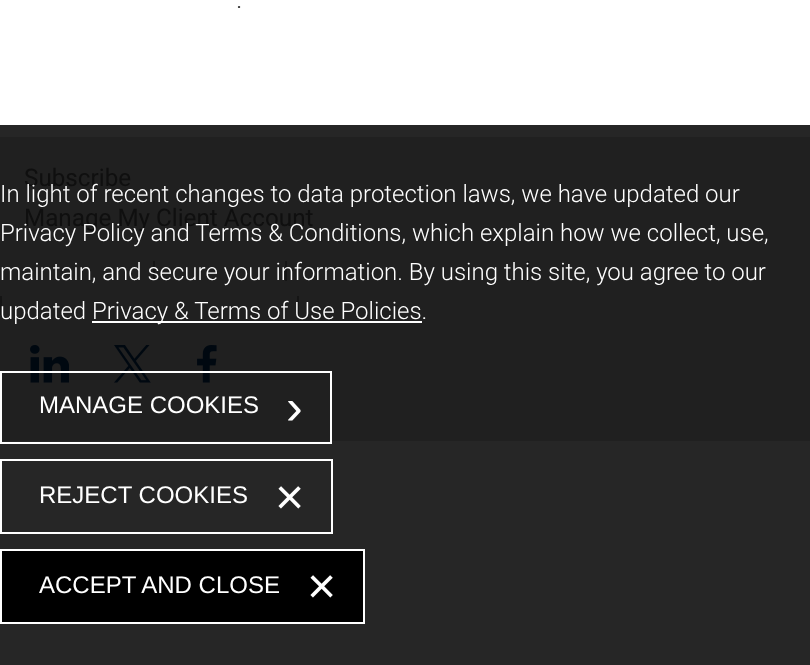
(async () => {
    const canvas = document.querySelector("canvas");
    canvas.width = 810;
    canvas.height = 665;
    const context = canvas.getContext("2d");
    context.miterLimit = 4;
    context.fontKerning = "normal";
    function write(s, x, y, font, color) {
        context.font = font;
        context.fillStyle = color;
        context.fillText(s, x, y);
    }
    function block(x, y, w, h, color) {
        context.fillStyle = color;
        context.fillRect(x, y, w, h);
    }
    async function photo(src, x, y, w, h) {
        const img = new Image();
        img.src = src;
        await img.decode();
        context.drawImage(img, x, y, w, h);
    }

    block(0, 0, 810, 665, "rgb(255, 255, 255)");
    block(0, 125, 810, 540, "rgb(38, 38, 38)");
    write(".", 236, 8, "300 27px Roboto", "rgb(51, 51, 51)");
    block(0, 137, 810, 304, "rgb(32, 32, 32)");
    write("Subscribe", 24, 186, "24.25px Roboto", "rgb(15, 15, 15)");
    write("Manage My Client Account", 24, 226, "24.25px Roboto", "rgb(15, 15, 15)");
    block(153, 261, 2, 20, "rgb(21, 21, 21)");
    block(285, 261, 2, 20, "rgb(21, 21, 21)");
    block(527, 261, 2, 20, "rgb(21, 21, 21)");
    block(0, 296, 2, 19, "rgb(21, 21, 21)");
    block(297, 296, 2, 19, "rgb(21, 21, 21)");
    await photo("media/1.png", 30, 345, 39, 38);
    await photo("media/2.png", 114, 345, 37, 38);
    await photo("media/3.png", 197, 345, 20, 38);
    write("In light of recent changes to data protection laws, we have updated our", 0, 202, "300 24px Roboto", "rgb(255, 255, 255)");
    write("Privacy Policy and Terms & Conditions, which explain how we collect, use,", 0, 241, "300 24px Roboto", "rgb(255, 255, 255)");
    write("maintain, and secure your information. By using this site, you agree to our", 0, 280, "300 24px Roboto", "rgb(255, 255, 255)");
    write("updated", 0, 319, "300 24px Roboto", "rgb(255, 255, 255)");
    block(92, 321, 330, 2, "rgb(255, 255, 255)");
    write("Privacy & Terms of Use Policies.", 92, 319, "300 24px Roboto", "rgb(255, 255, 255)");
    context.strokeStyle = "rgb(255, 255, 255)";
    context.lineWidth = 2;
    context.strokeRect(1, 372, 330, 71);
    write("MANAGE COOKIES", 39, 413, "24px Liberation Sans", "rgb(255, 255, 255)");
    write("›", 286, 424, "50px Liberation Sans", "rgb(255, 255, 255)");
    context.strokeRect(1, 460, 331, 73);
    write("REJECT COOKIES", 39, 503, "24px Liberation Sans", "rgb(255, 255, 255)");
    write("×", 275, 514, "50px Liberation Sans", "rgb(255, 255, 255)");
    context.fillStyle = "rgb(0, 0, 0)";
    context.beginPath();
    context.rect(1, 550, 363, 73);
    context.fill();
    context.stroke();
    write("ACCEPT AND CLOSE", 39, 593, "24px Liberation Sans", "rgb(255, 255, 255)");
    write("×", 307, 603, "50px Liberation Sans", "rgb(255, 255, 255)");
})();
